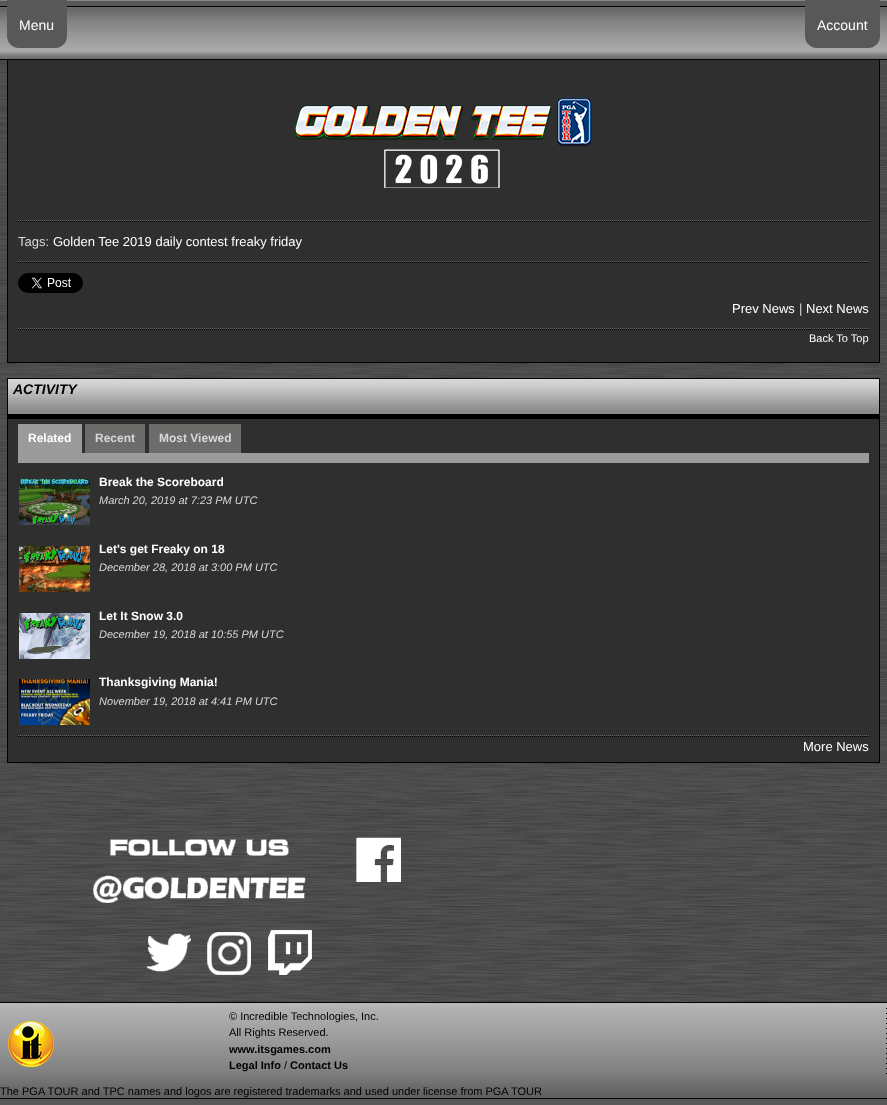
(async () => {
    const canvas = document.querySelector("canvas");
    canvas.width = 887;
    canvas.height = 1105;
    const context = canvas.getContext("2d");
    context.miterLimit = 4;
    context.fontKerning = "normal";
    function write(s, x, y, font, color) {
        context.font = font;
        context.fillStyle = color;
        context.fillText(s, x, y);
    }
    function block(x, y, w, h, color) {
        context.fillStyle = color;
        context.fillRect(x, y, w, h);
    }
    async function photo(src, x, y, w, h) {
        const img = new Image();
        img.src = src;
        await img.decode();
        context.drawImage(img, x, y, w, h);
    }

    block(0, 0, 887, 1105, "rgb(255, 255, 255)");
    await photo("media/1.png", 0, 60, 887, 942);
    block(8, 60, 871, 302, "rgb(47, 47, 47)");
    context.strokeStyle = "rgb(0, 0, 0)";
    context.strokeRect(7.5, -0.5, 872, 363);
    await photo("media/2.png", 0, 0, 887, 60);
    context.fillStyle = "rgb(89, 88, 88)";
    context.beginPath();
    context.roundRect(7, 0, 60, 48, [0, 0, 12, 12]);
    context.fill();
    write("Menu", 19, 30, "14px Liberation Sans", "rgb(255, 255, 255)");
    context.fillStyle = "rgb(89, 88, 88)";
    context.beginPath();
    context.roundRect(805, 0, 75, 48, [0, 0, 12, 12]);
    context.fill();
    write("Account", 817, 30, "14px Liberation Sans", "rgb(255, 255, 255)");
    await photo("media/3.png", 295, 98, 298, 90);
    context.beginPath();
    context.moveTo(18, 220.5);
    context.lineTo(869, 220.5);
    context.strokeStyle = "rgb(102, 102, 102)";
    context.setLineDash([1, 1]);
    context.stroke();
    context.beginPath();
    context.moveTo(18, 221.5);
    context.lineTo(869, 221.5);
    context.strokeStyle = "rgb(0, 0, 0)";
    context.stroke();
    write("Tags:", 18, 246, "13px Liberation Sans", "rgb(217, 216, 216)");
    write("Golden Tee 2019 daily contest freaky friday", 53, 246, "13px Liberation Sans", "rgb(255, 255, 255)");
    context.beginPath();
    context.moveTo(18, 261.5);
    context.lineTo(869, 261.5);
    context.strokeStyle = "rgb(102, 102, 102)";
    context.stroke();
    context.beginPath();
    context.moveTo(18, 262.5);
    context.lineTo(869, 262.5);
    context.strokeStyle = "rgb(0, 0, 0)";
    context.stroke();
    await photo("media/4.png", 18, 273, 65, 20);
    write("Prev News", 732, 313, "13px Liberation Sans", "rgb(255, 255, 255)");
    write("|", 799, 313, "13px Liberation Sans", "rgb(217, 216, 216)");
    write("Next News", 806, 313, "13px Liberation Sans", "rgb(255, 255, 255)");
    context.beginPath();
    context.moveTo(18, 328.5);
    context.lineTo(869, 328.5);
    context.strokeStyle = "rgb(102, 102, 102)";
    context.stroke();
    context.beginPath();
    context.moveTo(18, 329.5);
    context.lineTo(869, 329.5);
    context.strokeStyle = "rgb(0, 0, 0)";
    context.stroke();
    write("Back To Top", 809, 342, "11px Liberation Sans", "rgb(255, 255, 255)");
    block(8, 419, 871, 343, "rgb(47, 47, 47)");
    context.setLineDash([]);
    context.strokeRect(7.5, 378.5, 872, 384);
    await photo("media/5.png", 8, 379, 871, 40);
    write("ACTIVITY", 13, 394, "italic bold 14px Liberation Sans", "rgb(0, 0, 0)");
    block(18, 453, 851, 10, "rgb(155, 155, 155)");
    block(18, 424, 64, 29, "rgb(155, 155, 155)");
    write("Related", 28, 442, "bold 12px Liberation Sans", "rgb(255, 255, 255)");
    block(85, 424, 60, 29, "rgb(108, 108, 107)");
    write("Recent", 95, 442, "bold 12px Liberation Sans", "rgb(217, 216, 216)");
    block(149, 424, 92, 29, "rgb(108, 108, 107)");
    write("Most Viewed", 159, 442, "bold 12px Liberation Sans", "rgb(217, 216, 216)");
    await photo("media/6.png", 19, 479, 71, 46);
    write("Break the Scoreboard", 99, 486, "bold 12px Liberation Sans", "rgb(255, 255, 255)");
    write("March 20, 2019 at 7:23 PM UTC", 99, 504, "italic 11px Liberation Sans", "rgb(217, 216, 216)");
    await photo("media/7.png", 19, 546, 71, 46);
    write("Let's get Freaky on 18", 99, 553, "bold 12px Liberation Sans", "rgb(255, 255, 255)");
    write("December 28, 2018 at 3:00 PM UTC", 99, 571, "italic 11px Liberation Sans", "rgb(217, 216, 216)");
    await photo("media/8.png", 19, 613, 71, 46);
    write("Let It Snow 3.0", 99, 620, "bold 12px Liberation Sans", "rgb(255, 255, 255)");
    write("December 19, 2018 at 10:55 PM UTC", 99, 638, "italic 11px Liberation Sans", "rgb(217, 216, 216)");
    await photo("media/9.png", 19, 679, 71, 46);
    write("Thanksgiving Mania!", 99, 686, "bold 12px Liberation Sans", "rgb(255, 255, 255)");
    write("November 19, 2018 at 4:41 PM UTC", 99, 705, "italic 11px Liberation Sans", "rgb(217, 216, 216)");
    context.beginPath();
    context.moveTo(18, 735.5);
    context.lineTo(869, 735.5);
    context.strokeStyle = "rgb(102, 102, 102)";
    context.setLineDash([1, 1]);
    context.stroke();
    context.beginPath();
    context.moveTo(18, 736.5);
    context.lineTo(869, 736.5);
    context.strokeStyle = "rgb(0, 0, 0)";
    context.stroke();
    write("More News", 803, 751, "13px Liberation Sans", "rgb(255, 255, 255)");
    await photo("media/10.png", 93, 839, 213, 64);
    await photo("media/11.png", 356, 837, 45, 45);
    await photo("media/12.png", 147, 933, 44, 39);
    await photo("media/13.png", 207, 932, 44, 43);
    await photo("media/14.png", 268, 930, 44, 45);
    await photo("media/15.png", 0, 1002, 887, 103);
    await photo("media/16.png", 886, 1008, 1, 66);
    await photo("media/17.png", 8, 1021, 46, 46);
    write("© Incredible Technologies, Inc.", 229, 1020, "11px Liberation Sans", "rgb(0, 0, 0)");
    write("All Rights Reserved.", 229, 1036, "11px Liberation Sans", "rgb(0, 0, 0)");
    write("www.itsgames.com", 229, 1053, "bold 11px Liberation Sans", "rgb(0, 0, 0)");
    write("Legal Info", 229, 1069, "bold 11px Liberation Sans", "rgb(0, 0, 0)");
    write("/", 284, 1069, "11px Liberation Sans", "rgb(0, 0, 0)");
    write("Contact Us", 290, 1069, "bold 11px Liberation Sans", "rgb(0, 0, 0)");
    write("The PGA TOUR and TPC names and logos are registered trademarks and used under license from PGA TOUR", 0, 1095, "11px Liberation Sans", "rgb(0, 0, 0)");
})();
